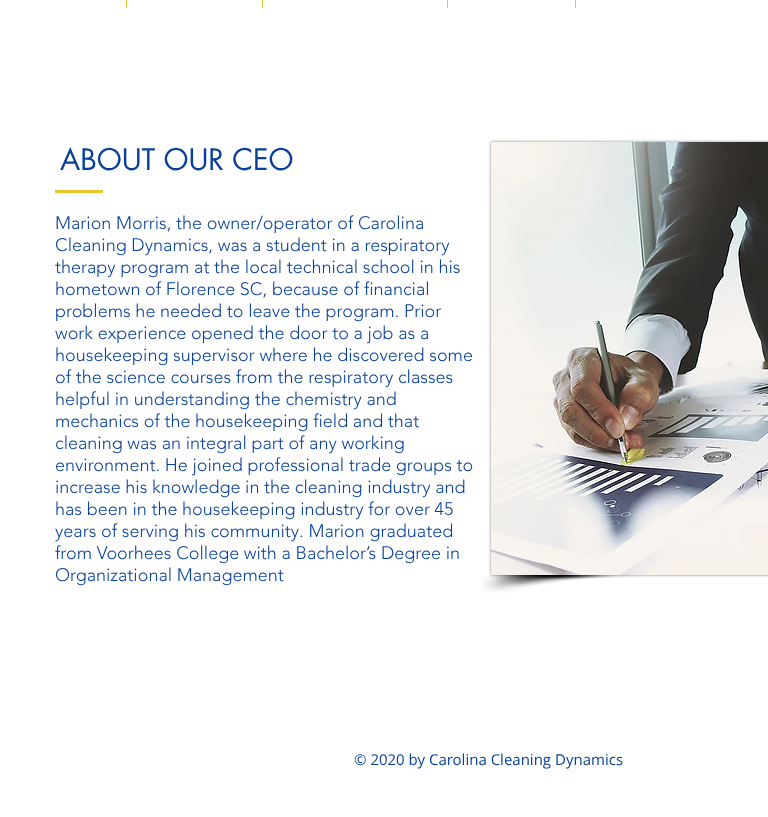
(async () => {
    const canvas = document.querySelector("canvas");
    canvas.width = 768;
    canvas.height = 817;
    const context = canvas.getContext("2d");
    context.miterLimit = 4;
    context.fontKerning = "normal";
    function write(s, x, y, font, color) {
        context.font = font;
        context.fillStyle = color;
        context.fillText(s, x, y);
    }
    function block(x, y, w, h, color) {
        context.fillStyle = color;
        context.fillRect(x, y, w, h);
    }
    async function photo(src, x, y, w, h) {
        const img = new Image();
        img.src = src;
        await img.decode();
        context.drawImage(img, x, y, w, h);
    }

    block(0, 0, 768, 817, "rgb(255, 255, 255)");
    block(126, 0, 1, 8, "rgb(232, 197, 41)");
    block(262, 0, 1, 8, "rgb(232, 197, 41)");
    block(447, 0, 1, 8, "rgb(232, 197, 41)");
    block(575, 0, 1, 8, "rgb(232, 197, 41)");
    write("ABOUT OUR CEO", 60, 170, "29px futura", "rgb(9, 65, 154)");
    context.fillStyle = "rgba(0, 0, 0, 0.5)";
    context.filter = "blur(1.5px)";
    context.beginPath();
    context.rect(491, 142, 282, 433);
    context.fill();
    context.filter = "none";
    await photo("media/1.png", 491, 142, 277, 433);
    await photo("media/2.png", 482, 575, 154, 18);
    block(55, 190, 48, 3, "rgb(232, 197, 41)");
    write("Marion Morris, the owner/operator of Carolina", 55, 229, "300 18px 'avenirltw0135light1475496'", "rgb(9, 65, 154)");
    write("Cleaning Dynamics, was a student in a respiratory", 55, 251, "300 18px 'avenirltw0135light1475496'", "rgb(9, 65, 154)");
    write("therapy program at the local technical school in his", 55, 273, "300 18px 'avenirltw0135light1475496'", "rgb(9, 65, 154)");
    write("hometown of Florence SC, because of financial", 55, 295, "300 18px 'avenirltw0135light1475496'", "rgb(9, 65, 154)");
    write("problems he needed to leave the program. Prior", 55, 317, "300 18px 'avenirltw0135light1475496'", "rgb(9, 65, 154)");
    write("work experience opened the door to a job as a", 55, 339, "300 18px 'avenirltw0135light1475496'", "rgb(9, 65, 154)");
    write("housekeeping supervisor where he discovered some", 55, 361, "300 18px 'avenirltw0135light1475496'", "rgb(9, 65, 154)");
    write("of the science courses from the respiratory classes", 55, 383, "300 18px 'avenirltw0135light1475496'", "rgb(9, 65, 154)");
    write("helpful in understanding the chemistry and", 55, 405, "300 18px 'avenirltw0135light1475496'", "rgb(9, 65, 154)");
    write("mechanics of the housekeeping field and that", 55, 427, "300 18px 'avenirltw0135light1475496'", "rgb(9, 65, 154)");
    write("cleaning was an integral part of any working", 55, 449, "300 18px 'avenirltw0135light1475496'", "rgb(9, 65, 154)");
    write("environment. He joined professional trade groups to", 55, 471, "300 18px 'avenirltw0135light1475496'", "rgb(9, 65, 154)");
    write("increase his knowledge in the cleaning industry and", 55, 493, "300 18px 'avenirltw0135light1475496'", "rgb(9, 65, 154)");
    write("has been in the housekeeping industry for over 45", 55, 515, "300 18px 'avenirltw0135light1475496'", "rgb(9, 65, 154)");
    write("years of serving his community. Marion graduated", 55, 537, "300 18px 'avenirltw0135light1475496'", "rgb(9, 65, 154)");
    write("from Voorhees College with a Bachelor’s Degree in", 55, 559, "300 18px 'avenirltw0135light1475496'", "rgb(9, 65, 154)");
    write("Organizational Management", 55, 581, "300 18px 'avenirltw0135light1475496'", "rgb(9, 65, 154)");
    write("© 2020 by Carolina Cleaning Dynamics", 354, 765, "15px Open Sans", "rgb(9, 65, 154)");
})();
